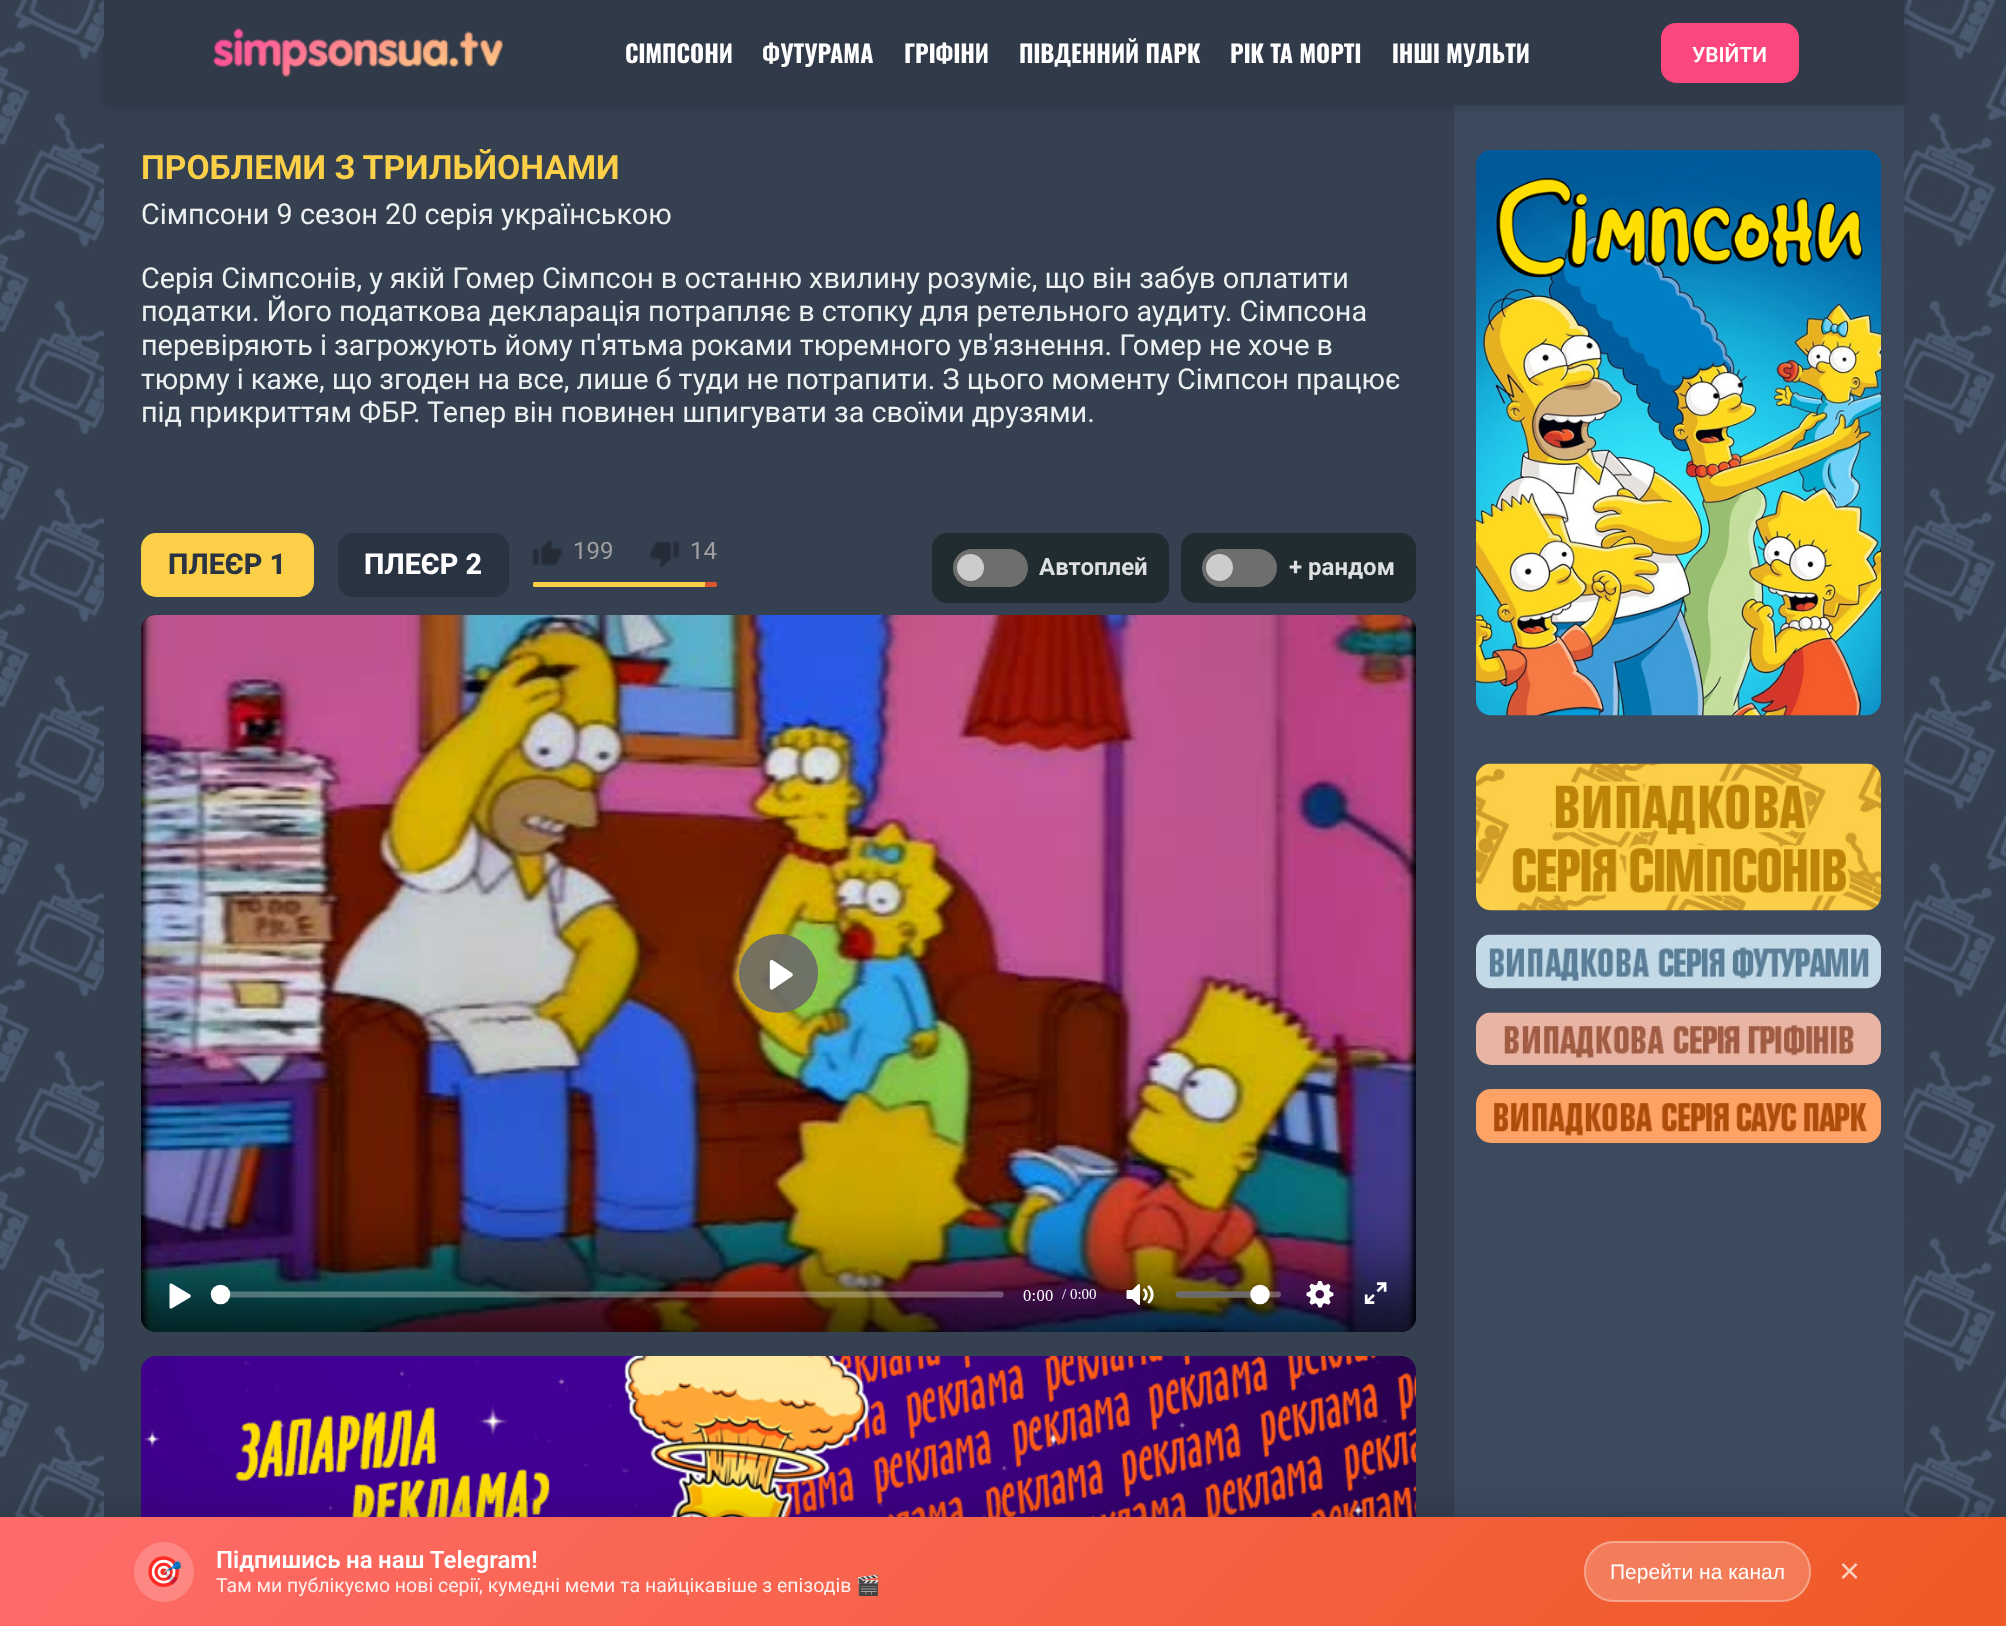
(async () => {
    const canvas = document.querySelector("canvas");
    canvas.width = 2006;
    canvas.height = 1626;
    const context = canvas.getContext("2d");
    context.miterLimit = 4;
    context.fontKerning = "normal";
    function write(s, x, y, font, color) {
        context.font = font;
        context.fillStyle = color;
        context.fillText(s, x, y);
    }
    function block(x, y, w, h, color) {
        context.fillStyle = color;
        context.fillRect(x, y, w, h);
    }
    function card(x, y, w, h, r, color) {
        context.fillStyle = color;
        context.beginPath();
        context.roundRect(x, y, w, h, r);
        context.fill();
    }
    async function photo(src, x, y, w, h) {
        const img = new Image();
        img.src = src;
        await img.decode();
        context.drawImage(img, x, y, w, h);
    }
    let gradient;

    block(0, 0, 2006, 1626, "rgb(255, 255, 255)");
    await photo("media/1.png", 0, 0, 2006, 1517);
    block(104, 105, 1350, 1412, "rgb(53, 64, 81)");
    block(1454, 105, 450, 1412, "rgb(61, 74, 94)");
    context.fillStyle = "rgba(0, 0, 0, 0.15)";
    context.filter = "blur(4px)";
    context.beginPath();
    context.rect(104, 2, 1800, 105);
    context.fill();
    context.filter = "none";
    block(104, 0, 1800, 105, "rgb(48, 58, 73)");
    await photo("media/2.png", 212, 28, 291, 49);
    write("СІМПСОНИ", 625, 63, "bold 24px Oswald", "rgb(255, 255, 255)");
    write("ФУТУРАМА", 762, 63, "bold 24px Oswald", "rgb(255, 255, 255)");
    write("ГРІФІНИ", 904, 63, "bold 24px Oswald", "rgb(255, 255, 255)");
    write("ПІВДЕННИЙ ПАРК", 1019, 63, "bold 24px Oswald", "rgb(255, 255, 255)");
    write("РІК ТА МОРТІ", 1230, 63, "bold 24px Oswald", "rgb(255, 255, 255)");
    write("ІНШІ МУЛЬТИ", 1392, 63, "bold 24px Oswald", "rgb(255, 255, 255)");
    card(1661, 23, 138, 60, 15, "rgb(252, 71, 126)");
    write("УВІЙТИ", 1692, 62, "600 21px Roboto", "rgb(255, 255, 255)");
    write("ПРОБЛЕМИ З ТРИЛЬЙОНАМИ", 141, 179, "bold 33.6px Roboto", "rgb(251, 207, 72)");
    write("Сімпсони 9 сезон 20 серія українською", 141, 224, "28.8px Roboto", "rgb(237, 240, 241)");
    write("Серія Сімпсонів, у якій Гомер Сімпсон в останню хвилину розуміє, що він забув оплатити", 141, 288, "28.8px Roboto", "rgb(237, 240, 241)");
    write("податки. Його податкова декларація потрапляє в стопку для ретельного аудиту. Сімпсона", 141, 321, "28.8px Roboto", "rgb(237, 240, 241)");
    write("перевіряють і загрожують йому п'ятьма роками тюремного ув'язнення. Гомер не хоче в", 141, 355, "28.8px Roboto", "rgb(237, 240, 241)");
    write("тюрму і каже, що згоден на все, лише б туди не потрапити. З цього моменту Сімпсон працює", 141, 389, "28.8px Roboto", "rgb(237, 240, 241)");
    write("під прикриттям ФБР. Тепер він повинен шпигувати за своїми друзями.", 141, 422, "28.8px Roboto", "rgb(237, 240, 241)");
    await photo("media/3.png", 532, 539, 31, 27);
    write("199", 573, 559, "24px Roboto", "rgb(160, 160, 160)");
    await photo("media/4.png", 649, 541, 31, 26);
    write("14", 690, 559, "24px Roboto", "rgb(160, 160, 160)");
    card(533, 582, 184, 5, 1.5, "rgb(216, 86, 50)");
    context.fillStyle = "rgb(251, 207, 72)";
    context.beginPath();
    context.roundRect(533, 582, 172, 5, [1.5, 0, 0, 1.5]);
    context.fill();
    card(141, 533, 173, 64, 15, "rgb(251, 207, 72)");
    write("ПЛЕЄР 1", 168, 574, "800 28.8px Roboto", "rgb(42, 51, 65)");
    card(338, 533, 171, 64, 15, "rgb(42, 51, 65)");
    write("ПЛЕЄР 2", 364, 574, "800 28.8px Roboto", "rgb(255, 255, 255)");
    card(932, 533, 237, 70, 15, "rgb(32, 44, 48)");
    context.fillStyle = "rgb(110, 110, 110)";
    context.beginPath();
    context.roundRect(955.5, 551.5, 70, 33, 16.5);
    context.fill();
    context.strokeStyle = "rgb(110, 110, 110)";
    context.lineWidth = 5;
    context.stroke();
    context.fillStyle = "rgb(204, 204, 204)";
    context.beginPath();
    context.arc(970.5, 567.5, 13.5, 0, Math.PI * 2);
    context.fill();
    write("Автоплей", 1039, 575, "bold 24px Roboto", "rgb(222, 223, 224)");
    card(1181, 533, 235, 70, 15, "rgb(32, 44, 48)");
    context.fillStyle = "rgb(110, 110, 110)";
    context.beginPath();
    context.roundRect(1204.5, 551.5, 70, 33, 16.5);
    context.fill();
    context.stroke();
    context.fillStyle = "rgb(204, 204, 204)";
    context.beginPath();
    context.arc(1219.5, 567.5, 13.5, 0, Math.PI * 2);
    context.fill();
    write("+ рандом", 1289, 575, "bold 24px Roboto", "rgb(222, 223, 224)");
    await photo("media/5.png", 141, 615, 1275, 717);
    await photo("media/6.png", 141, 1356, 1275, 161);
    await photo("media/7.png", 1476, 150, 405, 566);
    await photo("media/8.png", 1476, 763, 405, 148);
    await photo("media/9.png", 1476, 934, 405, 55);
    await photo("media/10.png", 1476, 1012, 405, 53);
    await photo("media/11.png", 1476, 1089, 405, 54);
    context.fillStyle = "rgba(0, 0, 0, 0.15)";
    context.filter = "blur(15px)";
    context.beginPath();
    context.rect(0, 1511, 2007, 109);
    context.fill();
    context.filter = "none";
    gradient = context.createLinearGradient(474, 1042, 1533, 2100);
    gradient.addColorStop(0, "rgb(255, 107, 107)");
    gradient.addColorStop(1, "rgb(238, 90, 36)");
    context.fillStyle = gradient;
    context.fillRect(0, 1517, 2006, 109);
    context.fillStyle = "rgba(255, 255, 255, 0.2)";
    context.beginPath();
    context.arc(164, 1572, 30, 0, Math.PI * 2);
    context.fill();
    write("🎯", 145, 1582, "30px Noto Color Emoji", "rgb(0, 0, 0)");
    context.wordSpacing = "-0.5px";
    write("Підпишись на наш Telegram!", 216, 1568, "600 24px Roboto", "rgb(255, 255, 255)");
    context.wordSpacing = "0px";
    write("Там ми публікуємо нові серії, кумедні меми та найцікавіше з епізодів", 216, 1592, "19.5px Roboto", "rgb(255, 240, 238)");
    write("🎬", 856, 1592, "19.5px Noto Color Emoji", "rgb(255, 240, 238)");
    card(1584, 1541, 227, 61, 30, "rgba(255, 255, 255, 0.2)");
    context.beginPath();
    context.roundRect(1585, 1542, 225, 59, 29);
    context.strokeStyle = "rgba(255, 255, 255, 0.3)";
    context.lineWidth = 2;
    context.stroke();
    write("Перейти на канал", 1610, 1579, "21px Liberation Sans", "rgb(255, 255, 255)");
    write("×", 1839, 1583, "36px Liberation Sans", "rgb(251, 206, 191)");
})();
